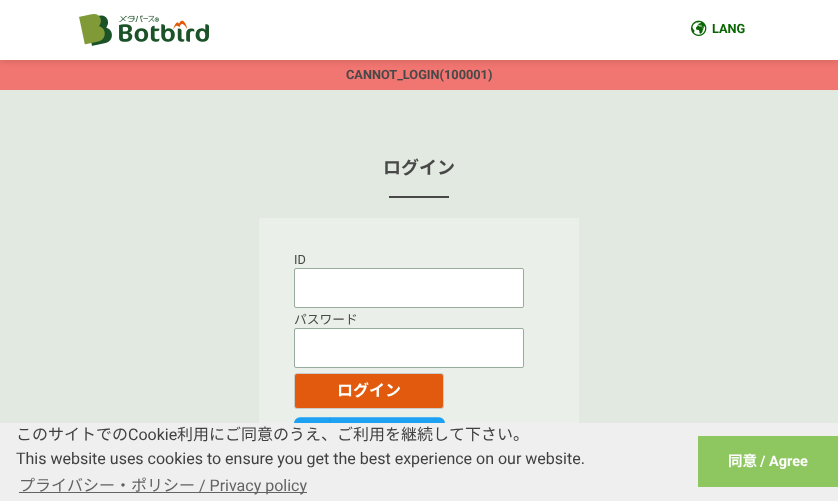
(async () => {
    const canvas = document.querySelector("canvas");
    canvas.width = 838;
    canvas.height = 501;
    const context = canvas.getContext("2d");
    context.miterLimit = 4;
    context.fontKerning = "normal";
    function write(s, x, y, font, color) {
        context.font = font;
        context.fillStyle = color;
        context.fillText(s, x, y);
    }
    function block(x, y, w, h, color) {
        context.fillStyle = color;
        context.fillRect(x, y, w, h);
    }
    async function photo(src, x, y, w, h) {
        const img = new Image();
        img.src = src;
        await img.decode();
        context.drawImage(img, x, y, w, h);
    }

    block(0, 0, 838, 501, "rgb(226, 233, 224)");
    block(0, 60, 838, 30, "rgb(241, 117, 112)");
    context.fillStyle = "rgba(0, 0, 0, 0.1)";
    context.filter = "blur(3px)";
    context.beginPath();
    context.rect(0, 2, 838, 60);
    context.fill();
    context.filter = "none";
    block(0, 0, 838, 60, "rgb(255, 255, 255)");
    await photo("media/1.png", 79, 14, 130, 32);
    await photo("media/2.png", 691, 20, 16, 16);
    write("LANG", 712, 33, "bold 12.75px Roboto", "rgb(8, 101, 1)");
    write("CANNOT_LOGIN(100001)", 346, 79, "bold 12.75px Roboto", "rgb(72, 72, 72)");
    write("ログイン", 383, 174, "bold 18px Noto Sans CJK JP", "rgb(72, 72, 72)");
    block(389, 196, 60, 2, "rgb(72, 72, 72)");
    block(259, 218, 320, 205, "rgb(235, 239, 233)");
    write("ID", 294, 264, "12.75px Roboto", "rgb(72, 72, 72)");
    context.fillStyle = "rgb(255, 255, 255)";
    context.beginPath();
    context.roundRect(294.5, 268.5, 229, 39, 1.5);
    context.fill();
    context.strokeStyle = "rgb(151, 172, 157)";
    context.stroke();
    write("パスワード", 294, 324, "12.75px Noto Sans JP", "rgb(72, 72, 72)");
    context.fillStyle = "rgb(255, 255, 255)";
    context.beginPath();
    context.roundRect(294.5, 328.5, 229, 39, 1.5);
    context.fill();
    context.stroke();
    context.fillStyle = "rgb(226, 90, 13)";
    context.beginPath();
    context.roundRect(294.5, 373.5, 149, 35, 2.5);
    context.fill();
    context.strokeStyle = "rgb(204, 204, 204)";
    context.stroke();
    write("ログイン", 337, 396, "bold 16px Noto Sans CJK JP", "rgb(255, 255, 255)");
    await photo("media/3.png", 294, 417, 151, 6);
    block(0, 423, 838, 78, "rgb(239, 239, 239)");
    write("このサイトでの", 16, 440, "16px Noto Sans JP", "rgb(64, 64, 64)");
    write("Cookie", 128, 440, "16px Roboto", "rgb(64, 64, 64)");
    write("利用にご同意のうえ、ご利用を継続して下さい。", 177, 440, "16px Noto Sans JP", "rgb(64, 64, 64)");
    write("This website uses cookies to ensure you get the best experience on our website.", 16, 464, "16px Roboto", "rgb(64, 64, 64)");
    write("プライバシー・ポリシー", 19, 491, "16px Noto Sans JP", "rgb(99, 99, 99)");
    block(19, 492, 288, 1, "rgb(99, 99, 99)");
    write("/ Privacy policy", 199, 491, "16px Roboto", "rgb(99, 99, 99)");
    block(698, 436, 140, 51, "rgb(142, 199, 96)");
    write("同意", 728, 466, "bold 14.5px Noto Sans CJK JP", "rgb(255, 255, 255)");
    write("/ Agree", 760, 466, "bold 14.5px Roboto", "rgb(255, 255, 255)");
})();
